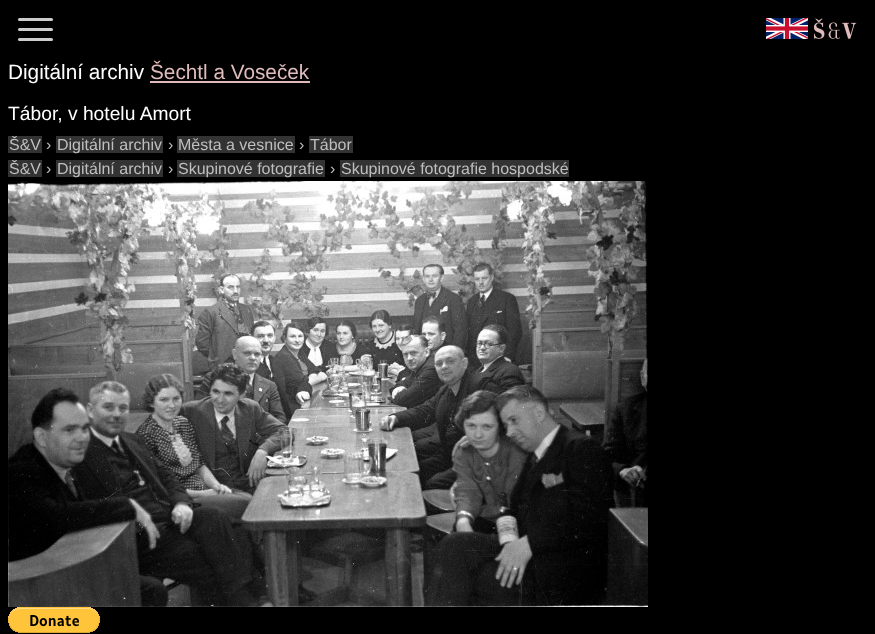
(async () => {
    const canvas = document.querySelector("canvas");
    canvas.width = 875;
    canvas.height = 634;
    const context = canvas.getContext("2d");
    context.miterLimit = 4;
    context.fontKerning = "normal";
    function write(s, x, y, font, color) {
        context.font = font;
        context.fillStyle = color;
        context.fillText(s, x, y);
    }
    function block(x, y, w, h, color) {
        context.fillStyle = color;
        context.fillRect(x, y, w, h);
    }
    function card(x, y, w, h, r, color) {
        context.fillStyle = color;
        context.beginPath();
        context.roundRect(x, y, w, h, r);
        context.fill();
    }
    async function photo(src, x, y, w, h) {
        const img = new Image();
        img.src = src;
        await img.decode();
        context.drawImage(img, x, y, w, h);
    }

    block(0, 0, 875, 634, "rgb(0, 0, 0)");
    card(18, 18, 35, 3, 1.5, "rgb(205, 205, 205)");
    await photo("media/1.png", 766, 18, 42, 21);
    await photo("media/2.png", 813, 18, 44, 21);
    card(18, 28, 35, 3, 1.5, "rgb(205, 205, 205)");
    card(18, 38, 35, 3, 1.5, "rgb(205, 205, 205)");
    write("Digitální archiv", 8, 79, "20.75px Liberation Sans", "rgb(255, 255, 255)");
    write("Šechtl a Voseček", 150, 79, "20.75px Liberation Sans", "rgb(223, 187, 187)");
    block(150, 81, 160, 2, "rgb(223, 187, 187)");
    write("Tábor, v hotelu Amort", 8, 120, "19.25px Liberation Sans", "rgb(255, 255, 255)");
    block(8, 136, 34, 17, "rgb(51, 51, 51)");
    write("Š&V", 9, 150, "16px Liberation Sans", "rgb(191, 191, 191)");
    write("›", 46, 150, "16px Liberation Sans", "rgb(191, 191, 191)");
    block(56, 136, 107, 17, "rgb(51, 51, 51)");
    write("Digitální archiv", 57, 150, "16px Liberation Sans", "rgb(191, 191, 191)");
    write("›", 168, 150, "16px Liberation Sans", "rgb(191, 191, 191)");
    block(177, 136, 118, 17, "rgb(51, 51, 51)");
    write("Města a vesnice", 178, 150, "16px Liberation Sans", "rgb(191, 191, 191)");
    write("›", 299, 150, "16px Liberation Sans", "rgb(191, 191, 191)");
    block(309, 136, 44, 17, "rgb(51, 51, 51)");
    write("Tábor", 310, 150, "16px Liberation Sans", "rgb(191, 191, 191)");
    block(8, 160, 34, 17, "rgb(51, 51, 51)");
    write("Š&V", 9, 174, "16px Liberation Sans", "rgb(191, 191, 191)");
    write("›", 46, 174, "16px Liberation Sans", "rgb(191, 191, 191)");
    block(56, 160, 107, 17, "rgb(51, 51, 51)");
    write("Digitální archiv", 57, 174, "16px Liberation Sans", "rgb(191, 191, 191)");
    write("›", 168, 174, "16px Liberation Sans", "rgb(191, 191, 191)");
    block(177, 160, 148, 17, "rgb(51, 51, 51)");
    write("Skupinové fotografie", 178, 174, "16px Liberation Sans", "rgb(191, 191, 191)");
    write("›", 330, 174, "16px Liberation Sans", "rgb(191, 191, 191)");
    block(340, 160, 229, 17, "rgb(51, 51, 51)");
    write("Skupinové fotografie hospodské", 341, 174, "16px Liberation Sans", "rgb(191, 191, 191)");
    await photo("media/3.png", 8, 181, 640, 426);
    await photo("media/4.png", 8, 607, 92, 26);
})();
